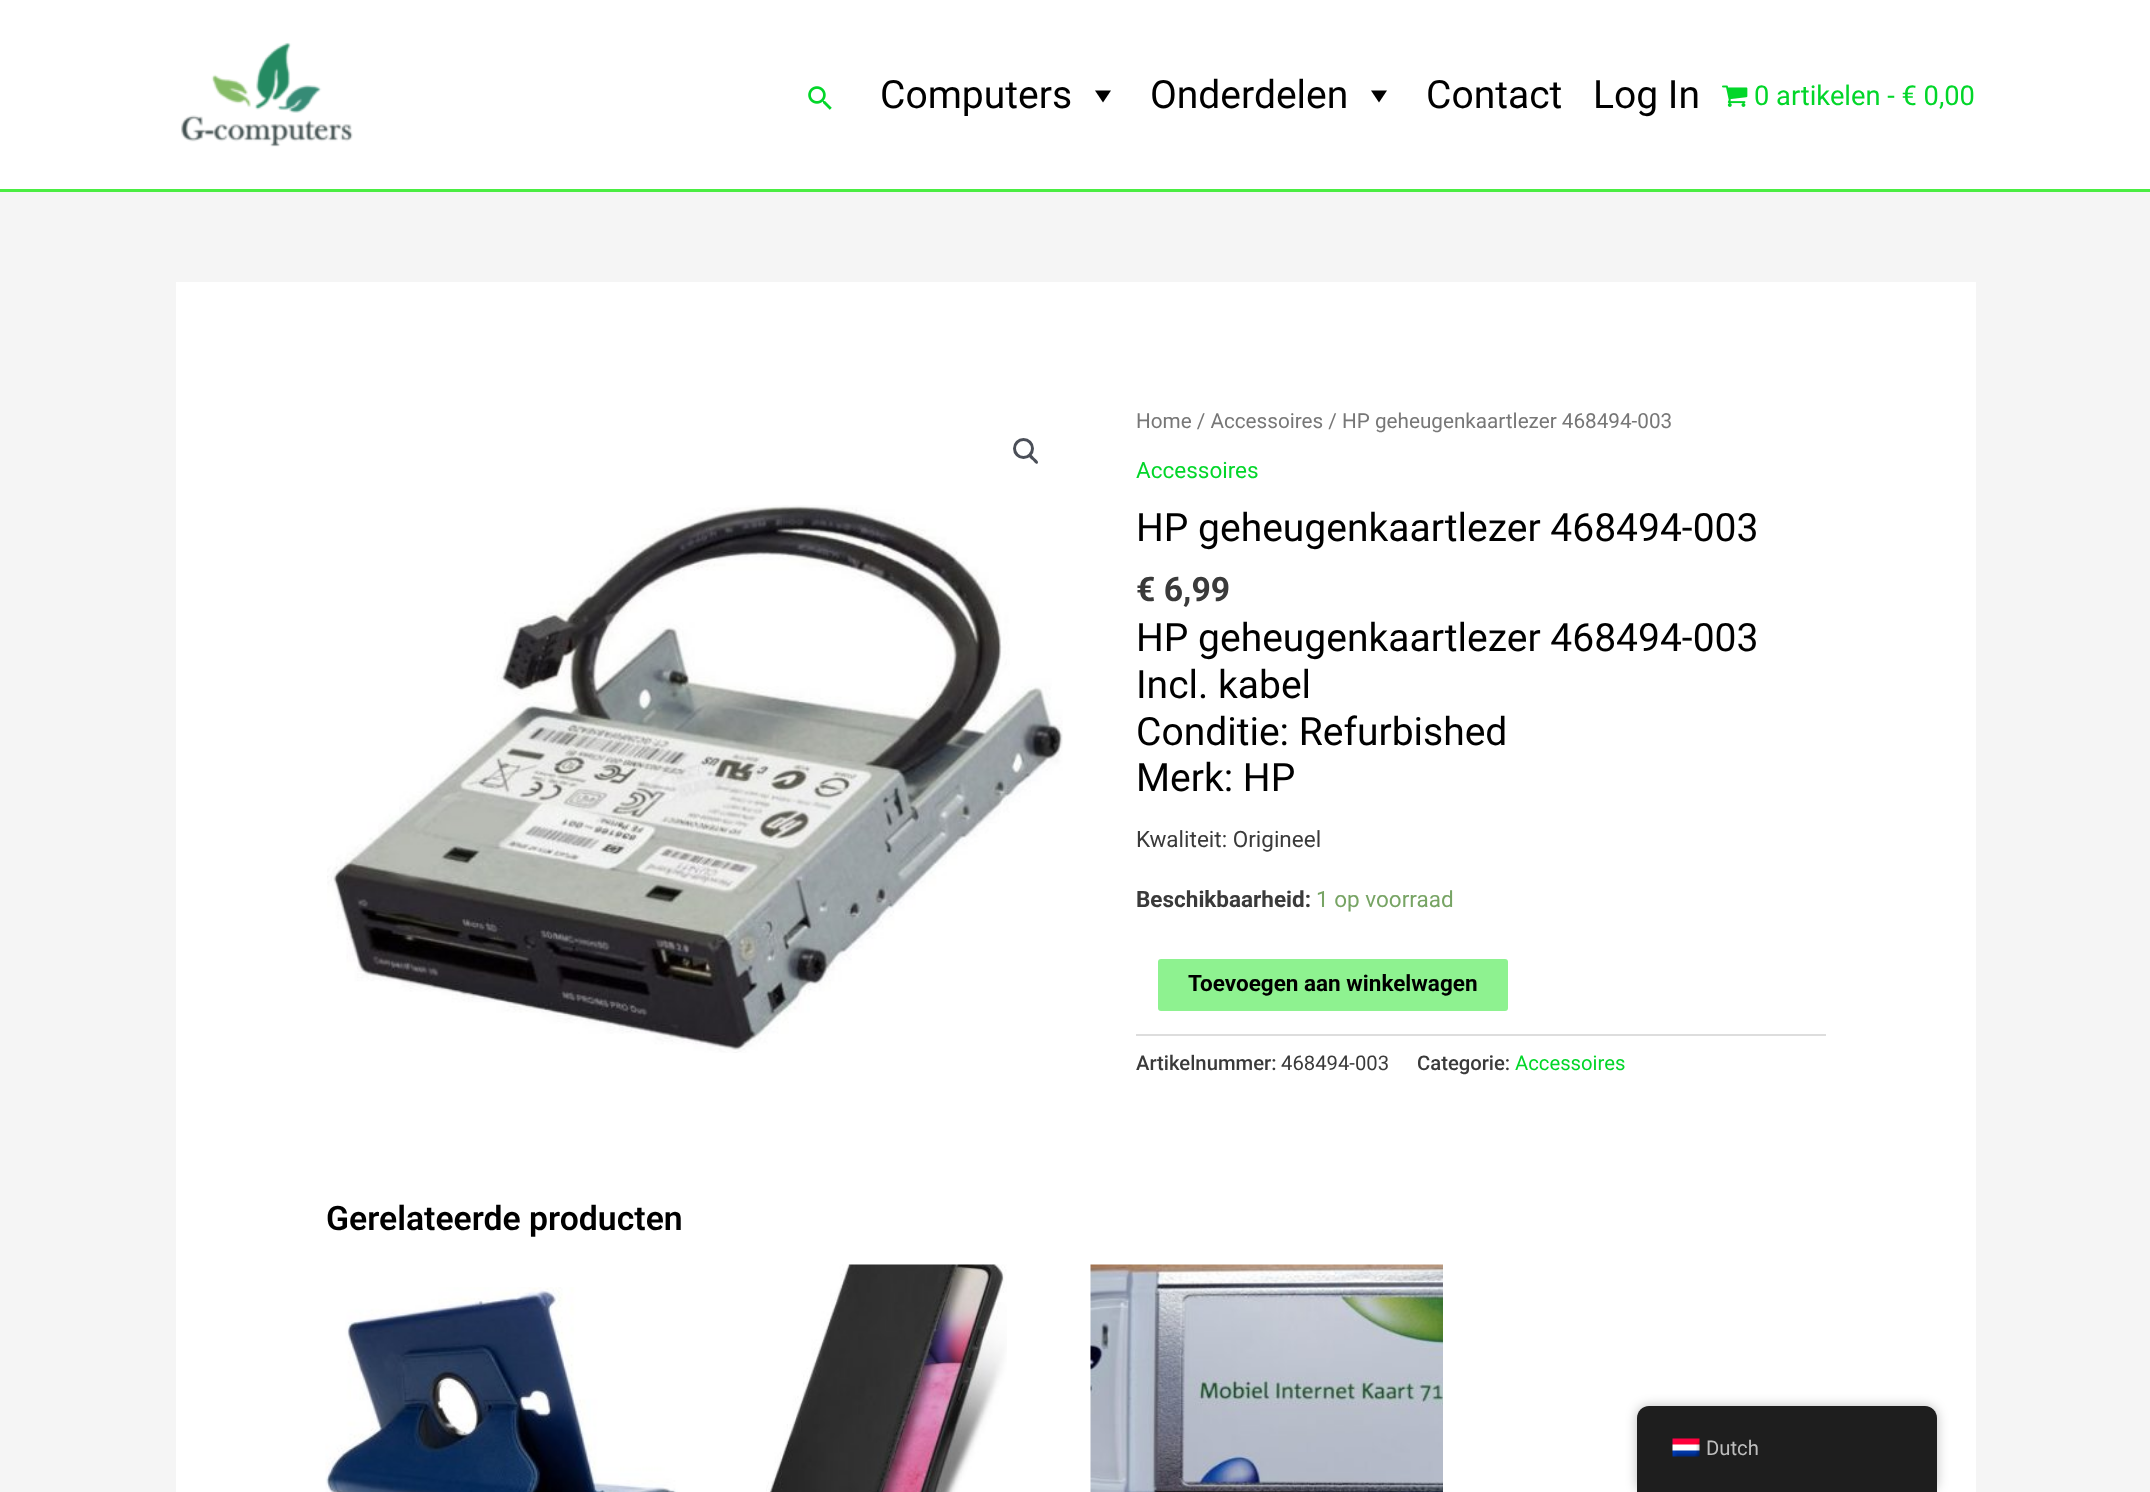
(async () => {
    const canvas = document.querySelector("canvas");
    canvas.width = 2150;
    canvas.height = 1492;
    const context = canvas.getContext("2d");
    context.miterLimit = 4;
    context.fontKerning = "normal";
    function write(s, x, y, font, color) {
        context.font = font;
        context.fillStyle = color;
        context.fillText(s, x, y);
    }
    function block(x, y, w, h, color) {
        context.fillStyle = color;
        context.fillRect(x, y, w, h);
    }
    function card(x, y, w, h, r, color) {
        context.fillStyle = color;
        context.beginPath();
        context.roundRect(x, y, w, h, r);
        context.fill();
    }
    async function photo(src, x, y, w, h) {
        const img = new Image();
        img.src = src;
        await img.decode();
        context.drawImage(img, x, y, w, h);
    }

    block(0, 0, 2150, 1492, "rgb(245, 245, 245)");
    block(0, 0, 2150, 189, "rgb(255, 255, 255)");
    block(0, 189, 2150, 3, "rgb(74, 237, 66)");
    await photo("media/1.png", 181, 42, 172, 105);
    await photo("media/2.png", 808, 86, 24, 24);
    write("Computers", 880, 108, "39px Roboto", "rgb(0, 0, 0)");
    context.beginPath();
    context.moveTo(1111, 90.5);
    context.lineTo(1103, 102.5);
    context.lineTo(1095, 90.5);
    context.closePath();
    context.fill();
    write("Onderdelen", 1150, 108, "39px Roboto", "rgb(0, 0, 0)");
    context.beginPath();
    context.moveTo(1387, 90.5);
    context.lineTo(1379, 102.5);
    context.lineTo(1371, 90.5);
    context.closePath();
    context.fill();
    write("Contact", 1426, 108, "39px Roboto", "rgb(0, 0, 0)");
    write("Log In", 1593, 108, "39px Roboto", "rgb(0, 0, 0)");
    await photo("media/3.png", 1722, 85, 26, 22);
    write("0 artikelen - € 0,00", 1754, 105, "27.25px Roboto", "rgb(2, 214, 41)");
    block(176, 282, 1800, 1210, "rgb(255, 255, 255)");
    context.beginPath();
    context.arc(1023.5, 448.5, 9, 0, Math.PI * 2);
    context.strokeStyle = "rgb(75, 79, 88)";
    context.lineWidth = 3;
    context.stroke();
    context.fillStyle = "rgb(75, 79, 88)";
    context.beginPath();
    context.moveTo(1029.5, 455);
    context.bezierCurveTo(1031, 453, 1033.5, 457, 1034.5, 458);
    context.bezierCurveTo(1035.5, 459, 1039.5, 461.5, 1037.5, 463.5);
    context.bezierCurveTo(1036, 465, 1033.5, 461, 1032.5, 460);
    context.bezierCurveTo(1031.5, 459.5, 1027.5, 456.5, 1029.5, 455);
    context.closePath();
    context.fill();
    await photo("media/4.png", 327, 505, 736, 548);
    write("Home / Accessoires / HP geheugenkaartlezer 468494-003", 1136, 428, "20.7px Roboto", "rgb(119, 119, 119)");
    write("Accessoires", 1136, 478, "22.5px Roboto", "rgb(2, 214, 41)");
    write("HP geheugenkaartlezer 468494-003", 1136, 541, "39px Roboto", "rgb(0, 0, 0)");
    write("€ 6,99", 1136, 601, "bold 33.75px Roboto", "rgb(58, 58, 58)");
    write("HP geheugenkaartlezer 468494-003", 1136, 651, "39px Roboto", "rgb(0, 0, 0)");
    write("Incl. kabel", 1136, 698, "39px Roboto", "rgb(0, 0, 0)");
    write("Conditie: Refurbished", 1136, 745, "39px Roboto", "rgb(0, 0, 0)");
    write("Merk: HP", 1136, 791, "39px Roboto", "rgb(0, 0, 0)");
    write("Kwaliteit: Origineel", 1136, 847, "22.5px Roboto", "rgb(58, 58, 58)");
    write("Beschikbaarheid:", 1136, 907, "bold 22.5px Roboto", "rgb(58, 58, 58)");
    write("1 op voorraad", 1316, 907, "22.5px Roboto", "rgb(119, 164, 100)");
    card(1158, 959, 350, 52, 3, "rgb(142, 242, 144)");
    write("Toevoegen aan winkelwagen", 1188, 991, "bold 22.5px Roboto", "rgb(0, 0, 0)");
    block(1136, 1034, 690, 2, "rgb(221, 221, 221)");
    write("Artikelnummer:", 1136, 1070, "500 20.25px Roboto", "rgb(58, 58, 58)");
    write("468494-003", 1281, 1070, "20.25px Roboto", "rgb(58, 58, 58)");
    write("Categorie:", 1417, 1070, "500 20.25px Roboto", "rgb(58, 58, 58)");
    write("Accessoires", 1515, 1070, "20.25px Roboto", "rgb(2, 214, 41)");
    write("Gerelateerde producten", 326, 1230, "600 33.75px Roboto", "rgb(0, 0, 0)");
    await photo("media/5.png", 325, 1287, 353, 205);
    await photo("media/6.png", 766, 1264, 241, 228);
    await photo("media/7.png", 1090, 1264, 353, 228);
    context.fillStyle = "rgba(0, 0, 0, 0.25)";
    context.filter = "blur(6px)";
    context.beginPath();
    context.roundRect(1637, 1406, 300, 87, 12);
    context.fill();
    context.filter = "none";
    context.fillStyle = "rgb(30, 30, 30)";
    context.beginPath();
    context.moveTo(1649, 1406);
    context.lineTo(1925, 1406);
    context.bezierCurveTo(1931.5, 1406, 1937, 1411.5, 1937, 1418);
    context.lineTo(1937, 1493);
    context.lineTo(1637, 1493);
    context.lineTo(1637, 1418);
    context.bezierCurveTo(1637, 1411.5, 1642.5, 1406, 1649, 1406);
    context.closePath();
    context.fill();
    await photo("media/8.png", 1672, 1438, 28, 19);
    write("Dutch", 1706, 1455, "20.25px Roboto", "rgb(189, 189, 189)");
})();
